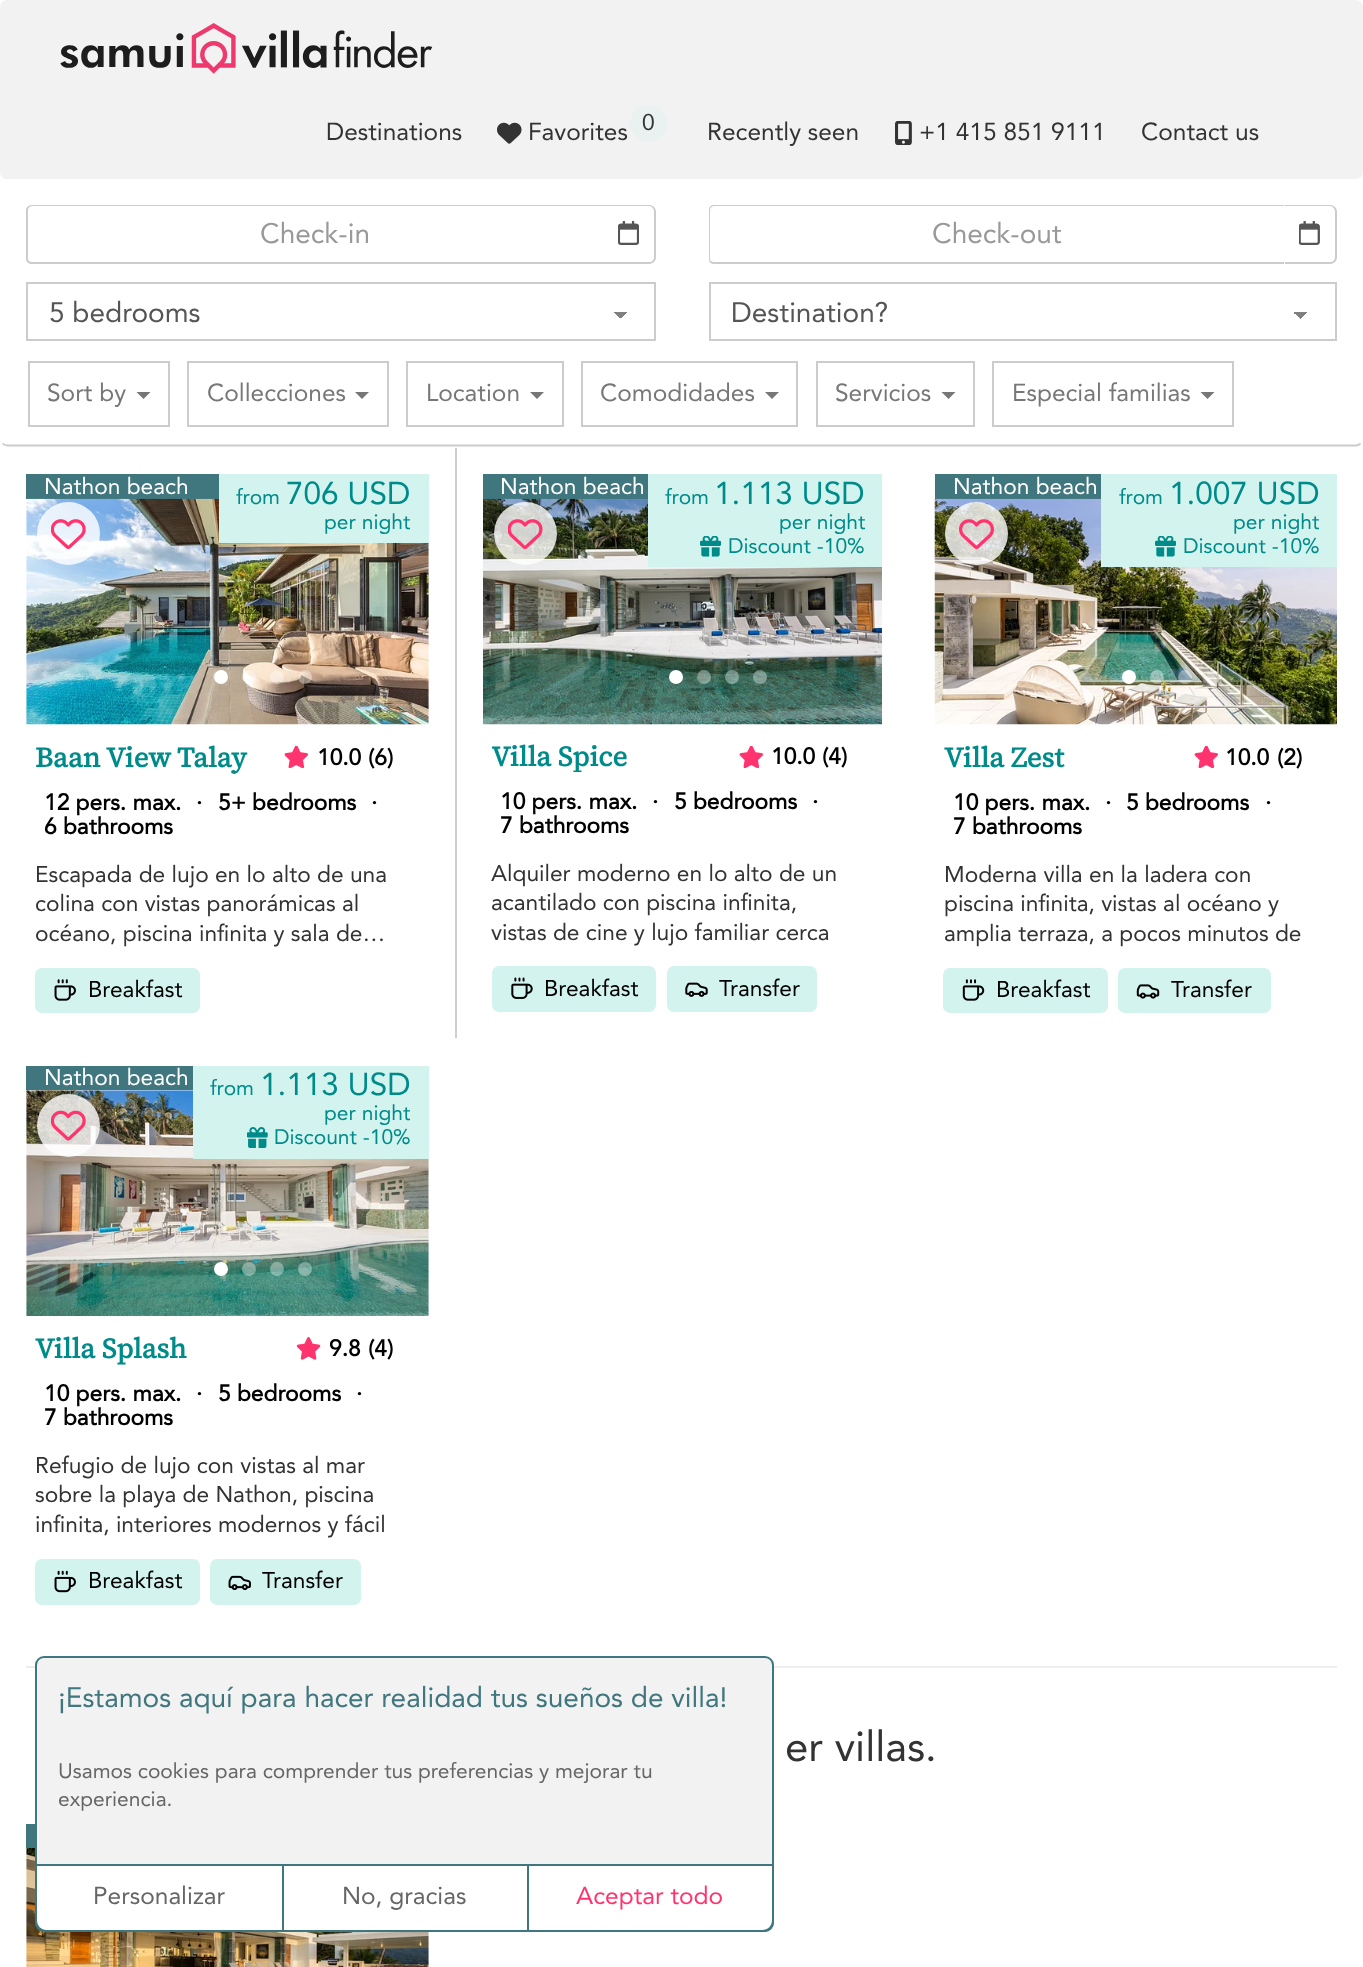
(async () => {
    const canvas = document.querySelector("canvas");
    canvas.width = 1363;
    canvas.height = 1967;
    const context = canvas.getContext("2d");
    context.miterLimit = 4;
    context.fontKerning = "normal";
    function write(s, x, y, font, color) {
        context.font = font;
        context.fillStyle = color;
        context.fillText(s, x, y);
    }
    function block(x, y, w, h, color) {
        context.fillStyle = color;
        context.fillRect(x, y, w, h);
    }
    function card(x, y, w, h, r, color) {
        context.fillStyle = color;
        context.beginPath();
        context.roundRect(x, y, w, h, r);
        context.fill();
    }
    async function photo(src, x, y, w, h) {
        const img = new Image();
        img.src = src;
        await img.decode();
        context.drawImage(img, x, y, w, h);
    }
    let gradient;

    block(0, 0, 1363, 1967, "rgb(255, 255, 255)");
    context.fillStyle = "rgb(242, 242, 242)";
    context.beginPath();
    context.roundRect(1, 1, 1361, 177, 6);
    context.fill();
    context.strokeStyle = "rgb(242, 242, 242)";
    context.lineWidth = 2;
    context.stroke();
    await photo("media/1.png", 60, 23, 373, 51);
    write("Destinations", 326, 140, "24.5px Avenir", "rgb(51, 51, 51)");
    await photo("media/2.png", 497, 122, 25, 22);
    write("Favorites", 528, 140, "24.5px Avenir", "rgb(51, 51, 51)");
    context.fillStyle = "rgb(233, 242, 241)";
    context.beginPath();
    context.arc(648.5, 123.5, 18.5, 0, Math.PI * 2);
    context.fill();
    write("0", 642, 130, "22.75px Avenir", "rgb(51, 51, 51)");
    write("Recently seen", 707, 140, "24.5px Avenir", "rgb(51, 51, 51)");
    await photo("media/3.png", 895, 121, 17, 24);
    write("+1 415 851 9111", 919, 140, "24.5px Avenir", "rgb(51, 51, 51)");
    write("Contact us", 1141, 140, "24.5px Avenir", "rgb(51, 51, 51)");
    context.fillStyle = "rgb(204, 204, 204)";
    context.beginPath();
    context.moveTo(32, 205);
    context.lineTo(604, 205);
    context.lineTo(604, 264);
    context.lineTo(32, 264);
    context.bezierCurveTo(29, 264, 26, 262, 26, 259);
    context.lineTo(26, 210);
    context.bezierCurveTo(26, 207, 29, 205, 32, 205);
    context.closePath();
    context.moveTo(32, 206);
    context.lineTo(604, 206);
    context.lineTo(604, 262);
    context.lineTo(32, 262);
    context.bezierCurveTo(30, 262, 28, 261, 28, 259);
    context.lineTo(28, 210);
    context.bezierCurveTo(28, 208, 30, 206, 32, 206);
    context.closePath();
    context.fill("evenodd");
    write("Check-in", 260, 243, "28px Avenir", "rgb(153, 153, 153)");
    context.fillStyle = "rgb(204, 204, 204)";
    context.beginPath();
    context.moveTo(604, 205);
    context.lineTo(649, 205);
    context.bezierCurveTo(653, 205, 656, 208, 656, 212);
    context.lineTo(656, 257);
    context.bezierCurveTo(656, 261, 653, 264, 649, 264);
    context.lineTo(604, 264);
    context.closePath();
    context.moveTo(604, 206);
    context.lineTo(649, 206);
    context.bezierCurveTo(652, 206, 654, 209, 654, 212);
    context.lineTo(654, 257);
    context.bezierCurveTo(654, 260, 652, 262, 649, 262);
    context.lineTo(604, 262);
    context.closePath();
    context.fill("evenodd");
    await photo("media/4.png", 618, 221, 21, 24);
    context.beginPath();
    context.moveTo(1284, 205);
    context.lineTo(1330, 205);
    context.bezierCurveTo(1334, 205, 1337, 208, 1337, 212);
    context.lineTo(1337, 257);
    context.bezierCurveTo(1337, 261, 1334, 264, 1330, 264);
    context.lineTo(1284, 264);
    context.closePath();
    context.moveTo(1284, 206);
    context.lineTo(1330, 206);
    context.bezierCurveTo(1333, 206, 1335, 209, 1335, 212);
    context.lineTo(1335, 257);
    context.bezierCurveTo(1335, 260, 1333, 262, 1330, 262);
    context.lineTo(1284, 262);
    context.closePath();
    context.fill("evenodd");
    context.fillStyle = "rgb(255, 255, 255)";
    context.beginPath();
    context.roundRect(709, 205, 576, 59, [5, 0, 0, 5]);
    context.fill();
    context.fillStyle = "rgb(204, 204, 204)";
    context.beginPath();
    context.moveTo(714, 205);
    context.lineTo(1284, 205);
    context.lineTo(1284, 264);
    context.lineTo(714, 264);
    context.bezierCurveTo(711, 264, 709, 262, 709, 259);
    context.lineTo(709, 210);
    context.bezierCurveTo(709, 207, 711, 205, 714, 205);
    context.closePath();
    context.moveTo(714, 206);
    context.lineTo(1284, 206);
    context.lineTo(1284, 262);
    context.lineTo(714, 262);
    context.bezierCurveTo(712, 262, 710, 261, 710, 259);
    context.lineTo(710, 210);
    context.bezierCurveTo(710, 208, 712, 206, 714, 206);
    context.closePath();
    context.fill("evenodd");
    write("Check-out", 932, 243, "28px Avenir", "rgb(153, 153, 153)");
    await photo("media/5.png", 1299, 221, 21, 24);
    gradient = context.createLinearGradient(620, 311, 628, 319);
    gradient.addColorStop(0.5, "rgb(128, 128, 128)");
    gradient.addColorStop(0.5, "rgb(255, 255, 255)");
    context.fillStyle = gradient;
    context.fillRect(620, 312, 8, 6);
    gradient = context.createLinearGradient(613, 319, 620, 312);
    gradient.addColorStop(0.5, "rgb(255, 255, 255)");
    gradient.addColorStop(0.5, "rgb(128, 128, 128)");
    context.fillStyle = gradient;
    context.fillRect(613, 312, 7, 6);
    context.strokeStyle = "rgb(204, 204, 204)";
    context.strokeRect(27, 283, 628, 57);
    write("5 bedrooms", 49, 322, "28px Avenir", "rgb(85, 85, 85)");
    gradient = context.createLinearGradient(1301, 311, 1309, 319);
    gradient.addColorStop(0.5, "rgb(128, 128, 128)");
    gradient.addColorStop(0.5, "rgb(255, 255, 255)");
    context.fillStyle = gradient;
    context.fillRect(1300, 312, 9, 7);
    gradient = context.createLinearGradient(1293, 319, 1300, 312);
    gradient.addColorStop(0.5, "rgb(255, 255, 255)");
    gradient.addColorStop(0.5, "rgb(128, 128, 128)");
    context.fillStyle = gradient;
    context.fillRect(1293, 312, 7, 6);
    context.strokeRect(710, 283, 626, 57);
    write("Destination?", 731, 322, "28px Avenir", "rgb(85, 85, 85)");
    context.beginPath();
    context.moveTo(1360.5, 443.5);
    context.bezierCurveTo(1359.5, 444.5, 1358, 445.5, 1356, 445.5);
    context.lineTo(7, 445.5);
    context.bezierCurveTo(5.5, 445.5, 4, 444.5, 2.5, 443.5);
    context.lineWidth = 1.8;
    context.stroke();
    context.lineWidth = 2;
    context.strokeRect(29, 362, 140, 64);
    write("Sort by", 47, 401, "24.5px Avenir", "rgb(119, 119, 119)");
    context.beginPath();
    context.moveTo(136.5, 392);
    context.lineTo(150.5, 392);
    context.lineTo(143.5, 399);
    context.closePath();
    context.fill();
    context.strokeRect(188, 362, 200, 64);
    write("Collecciones", 207, 401, "24.5px Avenir", "rgb(119, 119, 119)");
    context.beginPath();
    context.moveTo(355, 392);
    context.lineTo(369, 392);
    context.lineTo(362, 399);
    context.closePath();
    context.fill();
    context.strokeRect(407, 362, 156, 64);
    write("Location", 426, 401, "24.5px Avenir", "rgb(119, 119, 119)");
    context.beginPath();
    context.moveTo(530, 392);
    context.lineTo(544, 392);
    context.lineTo(537, 399);
    context.closePath();
    context.fill();
    context.strokeRect(582, 362, 215, 64);
    write("Comodidades", 600, 401, "24.5px Avenir", "rgb(119, 119, 119)");
    context.beginPath();
    context.moveTo(765, 392);
    context.lineTo(779, 392);
    context.lineTo(772, 399);
    context.closePath();
    context.fill();
    context.strokeRect(817, 362, 157, 64);
    write("Servicios", 835, 401, "24.5px Avenir", "rgb(119, 119, 119)");
    context.beginPath();
    context.moveTo(941.5, 392);
    context.lineTo(955.5, 392);
    context.lineTo(948.5, 399);
    context.closePath();
    context.fill();
    context.strokeRect(993, 362, 240, 64);
    write("Especial familias", 1012, 401, "24.5px Avenir", "rgb(119, 119, 119)");
    context.beginPath();
    context.moveTo(1200.5, 392);
    context.lineTo(1214.5, 392);
    context.lineTo(1207.5, 399);
    context.closePath();
    context.fill();
    block(26, 474, 193, 25, "rgb(64, 119, 126)");
    write("Nathon beach", 44, 494, "22.75px Avenir", "rgb(255, 255, 255)");
    await photo("media/7.png", 26, 498, 403, 227);
    block(219, 474, 210, 69, "rgb(211, 243, 238)");
    write("from", 236, 504, "21px Avenir", "rgb(0, 139, 139)");
    write("706 USD", 286, 504, "31.5px Avenir", "rgb(0, 139, 139)");
    write("per night", 324, 529, "21px Avenir", "rgb(0, 139, 139)");
    context.fillStyle = "rgba(255, 255, 255, 0.8)";
    context.beginPath();
    context.arc(68.5, 533.5, 31.5, 0, Math.PI * 2);
    context.fill();
    await photo("media/6.png", 51, 519, 35, 31);
    context.fillStyle = "rgb(255, 255, 255)";
    context.beginPath();
    context.arc(221, 677, 7, 0, Math.PI * 2);
    context.fill();
    context.fillStyle = "rgba(255, 255, 255, 0.36)";
    context.beginPath();
    context.arc(249, 677, 7, 0, Math.PI * 2);
    context.fill();
    context.beginPath();
    context.arc(277, 677, 7, 0, Math.PI * 2);
    context.fill();
    context.beginPath();
    context.arc(305, 677, 7, 0, Math.PI * 2);
    context.fill();
    write("Baan View Talay", 35, 767, "bold 28px 'Source Serif 4'", "rgb(0, 139, 139)");
    await photo("media/8.png", 284, 746, 24, 22);
    write("10.0", 317, 765, "bold 22.75px Avenir", "rgb(0, 0, 0)");
    write("(6)", 368, 765, "bold 22.75px Avenir", "rgb(0, 0, 0)");
    write("12 pers. max.", 44, 810, "bold 22.75px Avenir", "rgb(0, 0, 0)");
    write("·", 196, 810, "bold 22.75px Avenir", "rgb(0, 0, 0)");
    write("5+ bedrooms", 218, 810, "bold 22.75px Avenir", "rgb(0, 0, 0)");
    write("·", 371, 810, "bold 22.75px Avenir", "rgb(0, 0, 0)");
    write("6 bathrooms", 44, 834, "bold 22.75px Avenir", "rgb(0, 0, 0)");
    write("Escapada de lujo en lo alto de una", 35, 882, "22.75px Avenir", "rgb(51, 51, 51)");
    write("colina con vistas panorámicas al", 35, 911, "22.75px Avenir", "rgb(51, 51, 51)");
    write("océano, piscina infinita y sala de…", 35, 941, "22.75px Avenir", "rgb(51, 51, 51)");
    card(35, 968, 165, 45, 7, "rgb(211, 243, 238)");
    await photo("media/9.png", 54, 979, 22, 22);
    write("Breakfast", 88, 997, "22.75px Avenir", "rgb(0, 0, 0)");
    block(455, 448, 2, 590, "rgb(205, 205, 209)");
    block(483, 474, 165, 25, "rgb(64, 119, 126)");
    write("Nathon beach", 500, 494, "22.75px Avenir", "rgb(255, 255, 255)");
    await photo("media/12.png", 483, 498, 399, 227);
    block(648, 474, 234, 93, "rgb(211, 243, 238)");
    write("from", 665, 504, "21px Avenir", "rgb(0, 139, 139)");
    write("1.113 USD", 714, 504, "31.5px Avenir", "rgb(0, 139, 139)");
    write("per night", 779, 529, "21px Avenir", "rgb(0, 139, 139)");
    await photo("media/10.png", 700, 536, 21, 21);
    write("Discount -10%", 728, 553, "21px Avenir", "rgb(0, 139, 139)");
    context.fillStyle = "rgba(255, 255, 255, 0.8)";
    context.beginPath();
    context.arc(525.5, 533.5, 31.5, 0, Math.PI * 2);
    context.fill();
    await photo("media/11.png", 508, 519, 35, 30);
    context.fillStyle = "rgb(255, 255, 255)";
    context.beginPath();
    context.arc(676, 677, 7, 0, Math.PI * 2);
    context.fill();
    context.fillStyle = "rgba(255, 255, 255, 0.36)";
    context.beginPath();
    context.arc(704, 677, 7, 0, Math.PI * 2);
    context.fill();
    context.beginPath();
    context.arc(732, 677, 7, 0, Math.PI * 2);
    context.fill();
    context.beginPath();
    context.arc(760, 677, 7, 0, Math.PI * 2);
    context.fill();
    context.save();
    context.beginPath();
    context.rect(492, 742, 136, 30);
    context.clip();
    write("Villa Spice", 491, 766, "bold 28px 'Source Serif 4'", "rgb(0, 139, 139)");
    context.restore();
    await photo("media/8.png", 739, 746, 24, 22);
    write("10.0", 771, 764, "bold 22.75px Avenir", "rgb(0, 0, 0)");
    write("(4)", 822, 764, "bold 22.75px Avenir", "rgb(0, 0, 0)");
    write("10 pers. max.", 500, 809, "bold 22.75px Avenir", "rgb(0, 0, 0)");
    write("·", 652, 809, "bold 22.75px Avenir", "rgb(0, 0, 0)");
    write("5 bedrooms", 674, 809, "bold 22.75px Avenir", "rgb(0, 0, 0)");
    write("·", 812, 809, "bold 22.75px Avenir", "rgb(0, 0, 0)");
    write("7 bathrooms", 500, 833, "bold 22.75px Avenir", "rgb(0, 0, 0)");
    write("Alquiler moderno en lo alto de un", 491, 881, "22.75px Avenir", "rgb(51, 51, 51)");
    write("acantilado con piscina infinita,", 491, 910, "22.75px Avenir", "rgb(51, 51, 51)");
    write("vistas de cine y lujo familiar cerca", 491, 940, "22.75px Avenir", "rgb(51, 51, 51)");
    card(492, 966, 164, 46, 7, "rgb(211, 243, 238)");
    await photo("media/13.png", 511, 977, 22, 22);
    write("Breakfast", 544, 996, "22.75px Avenir", "rgb(0, 0, 0)");
    card(667, 966, 150, 46, 7, "rgb(211, 243, 238)");
    await photo("media/14.png", 685, 982, 23, 15);
    write("Transfer", 719, 996, "22.75px Avenir", "rgb(0, 0, 0)");
    block(935, 474, 166, 25, "rgb(64, 119, 126)");
    write("Nathon beach", 953, 494, "22.75px Avenir", "rgb(255, 255, 255)");
    await photo("media/16.png", 934, 498, 403, 227);
    block(1101, 474, 236, 93, "rgb(211, 243, 238)");
    write("from", 1119, 504, "21px Avenir", "rgb(0, 139, 139)");
    write("1.007 USD", 1169, 504, "31.5px Avenir", "rgb(0, 139, 139)");
    write("per night", 1233, 529, "21px Avenir", "rgb(0, 139, 139)");
    await photo("media/10.png", 1155, 536, 21, 21);
    write("Discount -10%", 1183, 553, "21px Avenir", "rgb(0, 139, 139)");
    context.fillStyle = "rgba(255, 255, 255, 0.8)";
    context.beginPath();
    context.arc(976.5, 533.5, 31.5, 0, Math.PI * 2);
    context.fill();
    await photo("media/15.png", 959, 519, 35, 31);
    context.fillStyle = "rgb(255, 255, 255)";
    context.beginPath();
    context.arc(1129, 677, 7, 0, Math.PI * 2);
    context.fill();
    context.fillStyle = "rgba(255, 255, 255, 0.36)";
    context.beginPath();
    context.arc(1157, 677, 7, 0, Math.PI * 2);
    context.fill();
    context.beginPath();
    context.arc(1185, 677, 7, 0, Math.PI * 2);
    context.fill();
    context.beginPath();
    context.arc(1213, 677, 7, 0, Math.PI * 2);
    context.fill();
    write("Villa Zest", 944, 767, "bold 28px 'Source Serif 4'", "rgb(0, 139, 139)");
    await photo("media/8.png", 1194, 746, 24, 22);
    write("10.0", 1225, 765, "bold 22.75px Avenir", "rgb(0, 0, 0)");
    write("(2)", 1277, 765, "bold 22.75px Avenir", "rgb(0, 0, 0)");
    write("10 pers. max.", 953, 810, "bold 22.75px Avenir", "rgb(0, 0, 0)");
    write("·", 1105, 810, "bold 22.75px Avenir", "rgb(0, 0, 0)");
    write("5 bedrooms", 1126, 810, "bold 22.75px Avenir", "rgb(0, 0, 0)");
    write("·", 1265, 810, "bold 22.75px Avenir", "rgb(0, 0, 0)");
    write("7 bathrooms", 953, 834, "bold 22.75px Avenir", "rgb(0, 0, 0)");
    write("Moderna villa en la ladera con", 944, 882, "22.75px Avenir", "rgb(51, 51, 51)");
    write("piscina infinita, vistas al océano y", 944, 911, "22.75px Avenir", "rgb(51, 51, 51)");
    write("amplia terraza, a pocos minutos de", 944, 941, "22.75px Avenir", "rgb(51, 51, 51)");
    card(943, 968, 165, 45, 7, "rgb(211, 243, 238)");
    await photo("media/17.png", 962, 979, 23, 22);
    write("Breakfast", 996, 997, "22.75px Avenir", "rgb(0, 0, 0)");
    card(1118, 968, 153, 45, 7, "rgb(211, 243, 238)");
    await photo("media/18.png", 1136, 984, 24, 15);
    write("Transfer", 1171, 997, "22.75px Avenir", "rgb(0, 0, 0)");
    block(26, 1066, 167, 24, "rgb(64, 119, 126)");
    write("Nathon beach", 44, 1085, "22.75px Avenir", "rgb(255, 255, 255)");
    await photo("media/21.png", 26, 1090, 403, 226);
    block(193, 1066, 236, 93, "rgb(211, 243, 238)");
    write("from", 210, 1095, "21px Avenir", "rgb(0, 139, 139)");
    write("1.113 USD", 260, 1095, "31.5px Avenir", "rgb(0, 139, 139)");
    write("per night", 324, 1120, "21px Avenir", "rgb(0, 139, 139)");
    await photo("media/19.png", 247, 1127, 21, 21);
    write("Discount -10%", 274, 1144, "21px Avenir", "rgb(0, 139, 139)");
    context.fillStyle = "rgba(255, 255, 255, 0.8)";
    context.beginPath();
    context.arc(68.5, 1125.5, 31.5, 0, Math.PI * 2);
    context.fill();
    await photo("media/20.png", 51, 1110, 35, 31);
    context.fillStyle = "rgb(255, 255, 255)";
    context.beginPath();
    context.arc(221, 1269, 7, 0, Math.PI * 2);
    context.fill();
    context.fillStyle = "rgba(255, 255, 255, 0.36)";
    context.beginPath();
    context.arc(249, 1269, 7, 0, Math.PI * 2);
    context.fill();
    context.beginPath();
    context.arc(277, 1269, 7, 0, Math.PI * 2);
    context.fill();
    context.beginPath();
    context.arc(305, 1269, 7, 0, Math.PI * 2);
    context.fill();
    write("Villa Splash", 35, 1358, "bold 28px 'Source Serif 4'", "rgb(0, 139, 139)");
    await photo("media/22.png", 296, 1337, 25, 23);
    write("9.8", 329, 1356, "bold 22.75px Avenir", "rgb(0, 0, 0)");
    write("(4)", 368, 1356, "bold 22.75px Avenir", "rgb(0, 0, 0)");
    write("10 pers. max.", 44, 1401, "bold 22.75px Avenir", "rgb(0, 0, 0)");
    write("·", 196, 1401, "bold 22.75px Avenir", "rgb(0, 0, 0)");
    write("5 bedrooms", 218, 1401, "bold 22.75px Avenir", "rgb(0, 0, 0)");
    write("·", 356, 1401, "bold 22.75px Avenir", "rgb(0, 0, 0)");
    write("7 bathrooms", 44, 1425, "bold 22.75px Avenir", "rgb(0, 0, 0)");
    write("Refugio de lujo con vistas al mar", 35, 1473, "22.75px Avenir", "rgb(51, 51, 51)");
    write("sobre la playa de Nathon, piscina", 35, 1502, "22.75px Avenir", "rgb(51, 51, 51)");
    write("infinita, interiores modernos y fácil", 35, 1532, "22.75px Avenir", "rgb(51, 51, 51)");
    card(35, 1559, 165, 46, 7, "rgb(211, 243, 238)");
    await photo("media/23.png", 54, 1570, 22, 23);
    write("Breakfast", 88, 1588, "22.75px Avenir", "rgb(0, 0, 0)");
    card(210, 1559, 151, 46, 7, "rgb(211, 243, 238)");
    await photo("media/24.png", 228, 1575, 23, 16);
    write("Transfer", 262, 1588, "22.75px Avenir", "rgb(0, 0, 0)");
    block(26, 1666, 1311, 2, "rgb(238, 238, 238)");
    write("er villas.", 785, 1761, "42px Avenir", "rgb(51, 51, 51)");
    block(26, 1824, 9, 24, "rgb(64, 119, 126)");
    await photo("media/25.png", 26, 1848, 403, 119);
    context.fillStyle = "rgb(242, 242, 242)";
    context.beginPath();
    context.roundRect(36, 1657, 737, 274, 8);
    context.fill();
    context.strokeStyle = "rgb(64, 119, 126)";
    context.stroke();
    write("¡Estamos aquí para hacer realidad tus sueños de villa!", 58, 1707, "28px Avenir", "rgb(64, 119, 126)");
    write("Usamos cookies para comprender tus preferencias y mejorar tu", 58, 1778, "21px Avenir", "rgb(102, 102, 102)");
    write("experiencia.", 58, 1806, "21px Avenir", "rgb(102, 102, 102)");
    context.fillStyle = "rgb(255, 255, 255)";
    context.beginPath();
    context.roundRect(527, 1866, 245, 64, [0, 0, 9, 0]);
    context.fill();
    context.beginPath();
    context.roundRect(526, 1865, 247, 66, [0, 0, 10, 0]);
    context.stroke();
    block(284, 1866, 243, 64, "rgb(255, 255, 255)");
    context.strokeRect(281, 1865, 247, 66);
    context.beginPath();
    context.roundRect(37, 1866, 245, 64, [0, 0, 0, 9]);
    context.fill();
    context.beginPath();
    context.roundRect(36, 1865, 247, 66, [0, 0, 0, 10]);
    context.stroke();
    write("Personalizar", 93, 1904, "24.5px Avenir", "rgb(102, 102, 102)");
    write("No, gracias", 342, 1904, "24.5px Avenir", "rgb(102, 102, 102)");
    write("Aceptar todo", 576, 1904, "24.5px Avenir", "rgb(255, 51, 109)");
})();
